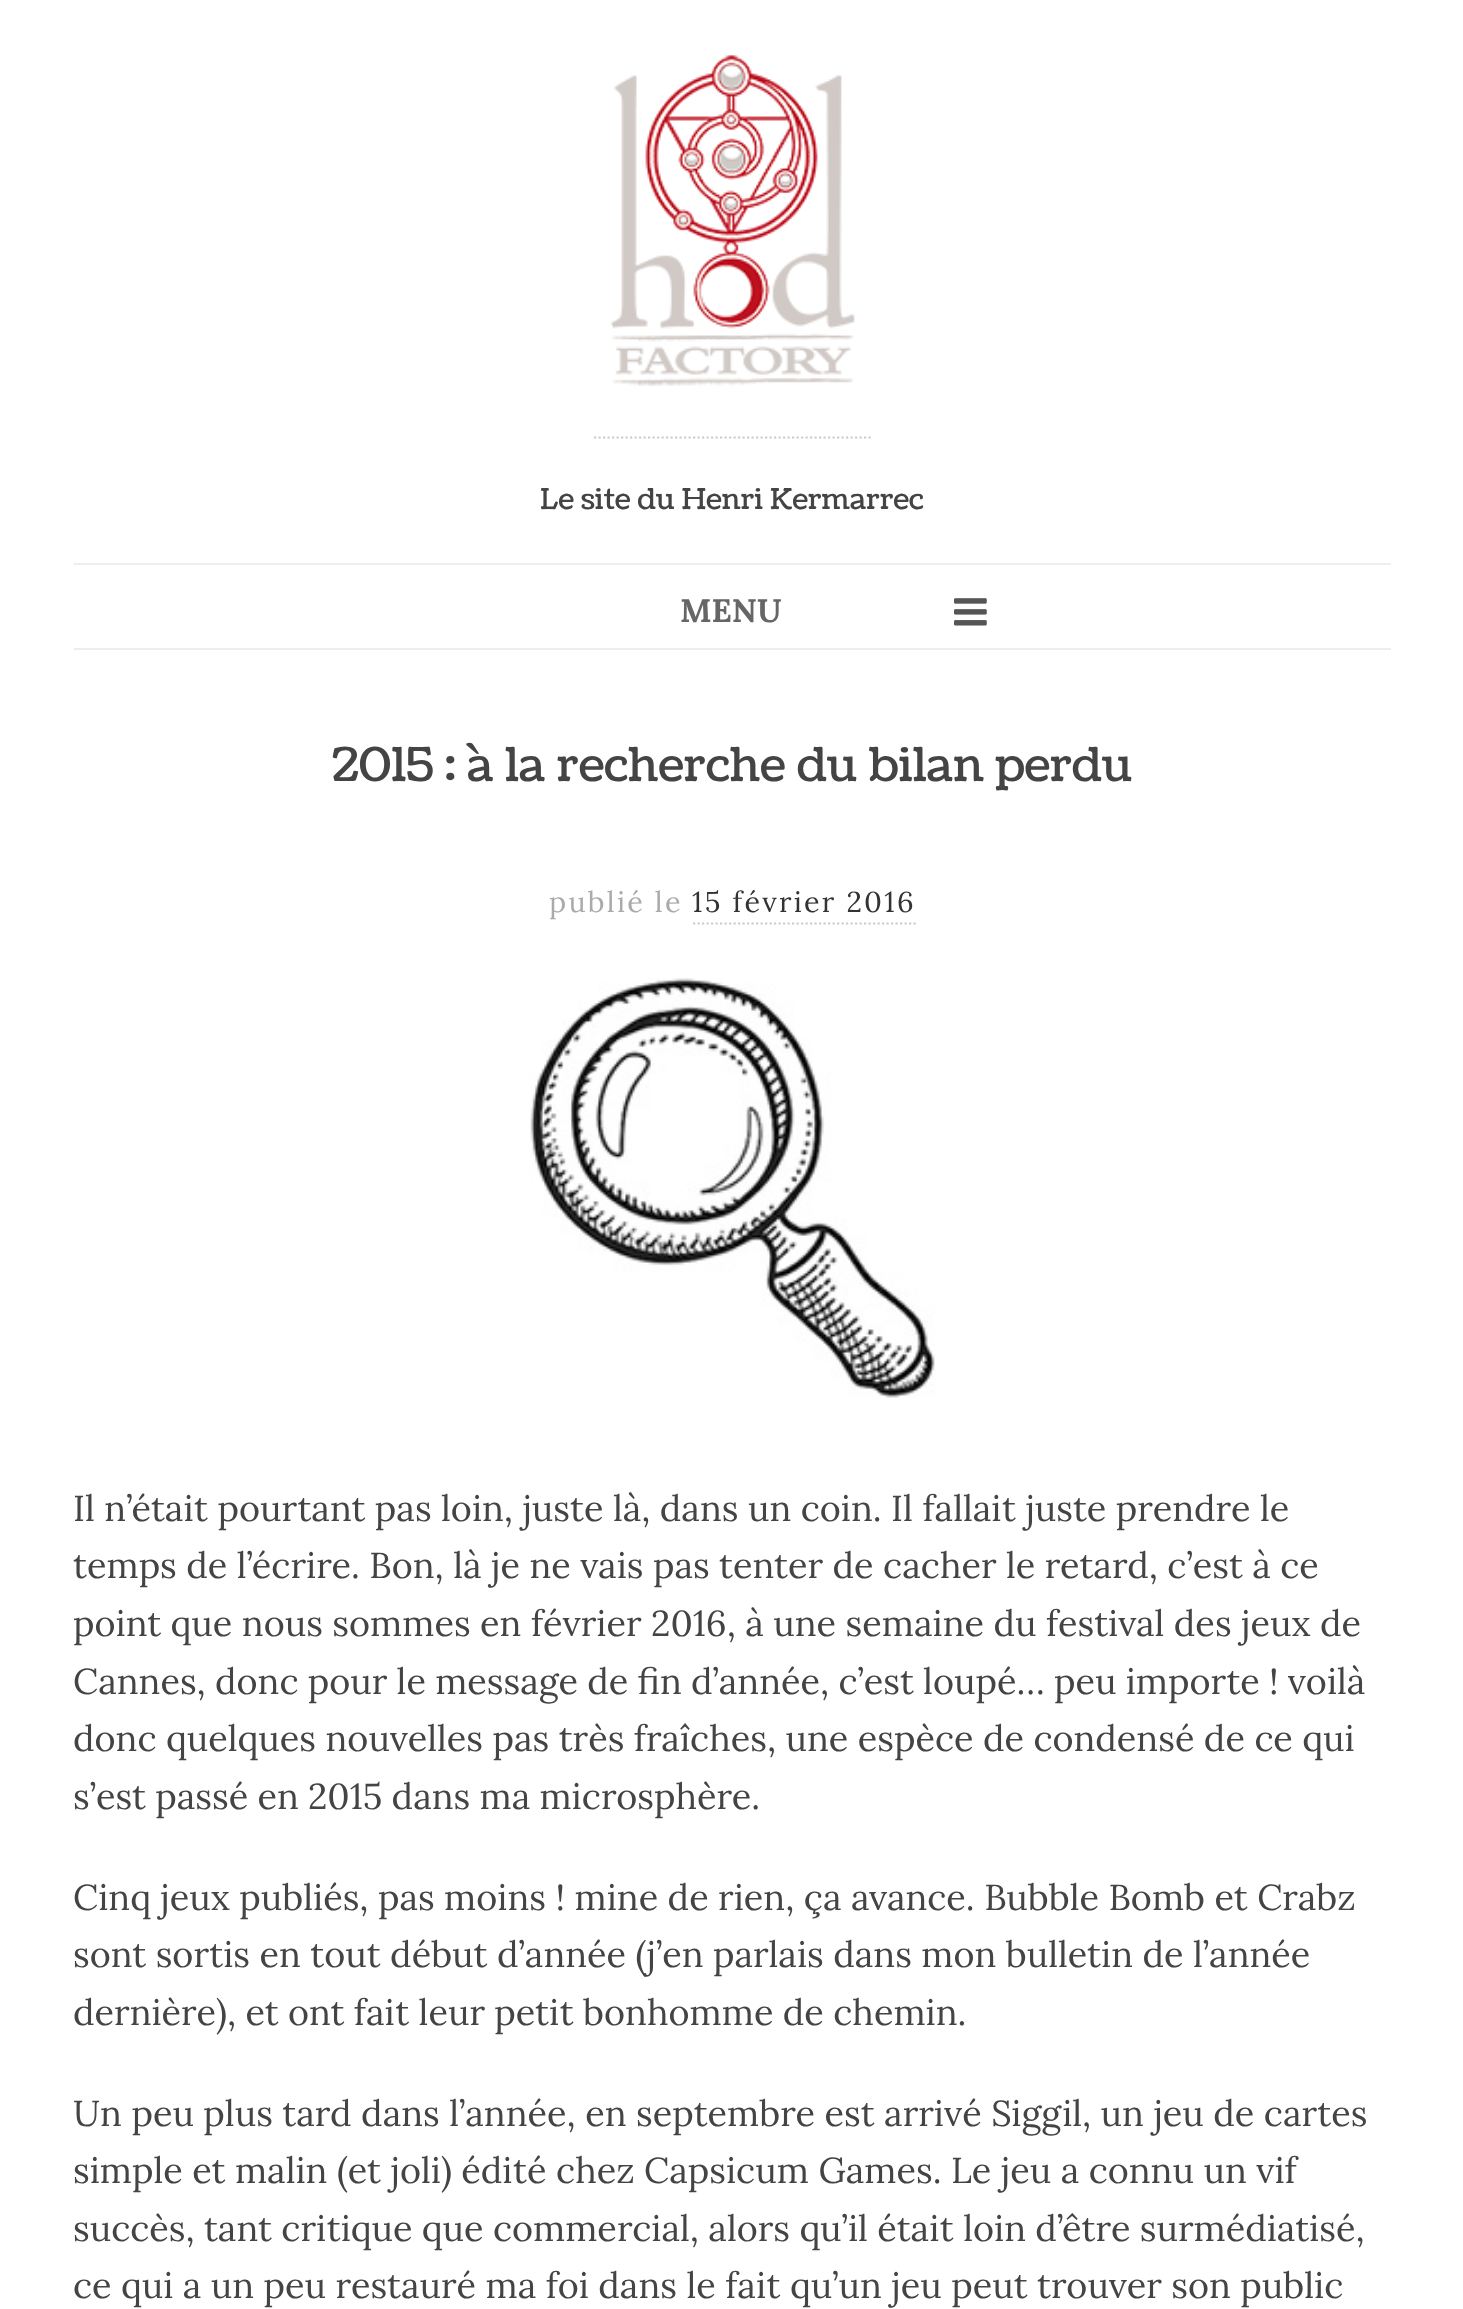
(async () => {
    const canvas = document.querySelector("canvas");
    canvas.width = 1463;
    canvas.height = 2309;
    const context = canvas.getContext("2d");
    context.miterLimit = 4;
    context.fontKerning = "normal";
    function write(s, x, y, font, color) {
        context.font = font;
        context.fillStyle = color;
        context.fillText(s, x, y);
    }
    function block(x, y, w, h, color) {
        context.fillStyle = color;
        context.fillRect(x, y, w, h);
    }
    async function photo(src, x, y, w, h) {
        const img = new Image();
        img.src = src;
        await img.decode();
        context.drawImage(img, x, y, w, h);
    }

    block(0, 0, 1463, 2309, "rgb(255, 255, 255)");
    await photo("media/1.png", 610, 55, 245, 331);
    context.beginPath();
    context.moveTo(594, 437.5);
    context.lineTo(871, 437.5);
    context.strokeStyle = "rgb(204, 204, 204)";
    context.lineWidth = 2.2;
    context.setLineDash([2.25, 2.25]);
    context.stroke();
    write("Le site du Henri Kermarrec", 540, 509, "28.75px Coustard", "rgb(68, 68, 68)");
    block(74, 563, 1317, 2, "rgb(238, 238, 238)");
    block(74, 648, 1317, 2, "rgb(238, 238, 238)");
    write("MENU", 680, 622, "bold 32.5px Lora", "rgb(102, 102, 102)");
    await photo("media/2.png", 954, 598, 33, 28);
    write("2015 : à la recherche du bilan perdu", 332, 781, "46.75px Coustard", "rgb(68, 68, 68)");
    context.letterSpacing = "2.25px";
    write("publié le", 549, 912, "28.75px Lora", "rgb(170, 170, 170)");
    write("15 février 2016", 692, 912, "28.75px Lora", "rgb(51, 51, 51)");
    context.beginPath();
    context.moveTo(693, 923.5);
    context.lineTo(916, 923.5);
    context.stroke();
    await photo("media/3.png", 530, 978, 405, 420);
    context.letterSpacing = "0px";
    write("Il n’était pourtant pas loin, juste là, dans un coin. Il fallait juste prendre le", 73, 1521, "36px Lora", "rgb(68, 68, 68)");
    write("temps de l’écrire. Bon, là je ne vais pas tenter de cacher le retard, c’est à ce", 73, 1578, "36px Lora", "rgb(68, 68, 68)");
    write("point que nous sommes en février 2016, à une semaine du festival des jeux de", 73, 1636, "36px Lora", "rgb(68, 68, 68)");
    context.wordSpacing = "-0.25px";
    write("Cannes, donc pour le message de fin d’année, c’est loupé… peu importe ! voilà", 73, 1694, "36px Lora", "rgb(68, 68, 68)");
    context.wordSpacing = "0px";
    write("donc quelques nouvelles pas très fraîches, une espèce de condensé de ce qui", 73, 1751, "36px Lora", "rgb(68, 68, 68)");
    context.wordSpacing = "-0.25px";
    write("s’est passé en 2015 dans ma microsphère.", 73, 1809, "36px Lora", "rgb(68, 68, 68)");
    context.wordSpacing = "0px";
    write("Cinq jeux publiés, pas moins ! mine de rien, ça avance. Bubble Bomb et Crabz", 73, 1910, "36px Lora", "rgb(68, 68, 68)");
    write("sont sortis en tout début d’année (j’en parlais dans mon bulletin de l’année", 73, 1967, "36px Lora", "rgb(68, 68, 68)");
    context.wordSpacing = "-0.1px";
    write("dernière), et ont fait leur petit bonhomme de chemin.", 73, 2025, "36px Lora", "rgb(68, 68, 68)");
    context.wordSpacing = "0px";
    write("Un peu plus tard dans l’année, en septembre est arrivé Siggil, un jeu de cartes", 73, 2126, "36px Lora", "rgb(68, 68, 68)");
    write("simple et malin (et joli) édité chez Capsicum Games. Le jeu a connu un vif", 73, 2183, "36px Lora", "rgb(68, 68, 68)");
    context.wordSpacing = "-0.1px";
    write("succès, tant critique que commercial, alors qu’il était loin d’être surmédiatisé,", 73, 2241, "36px Lora", "rgb(68, 68, 68)");
    context.wordSpacing = "0px";
    write("ce qui a un peu restauré ma foi dans le fait qu’un jeu peut trouver son public", 73, 2298, "36px Lora", "rgb(68, 68, 68)");
})();
